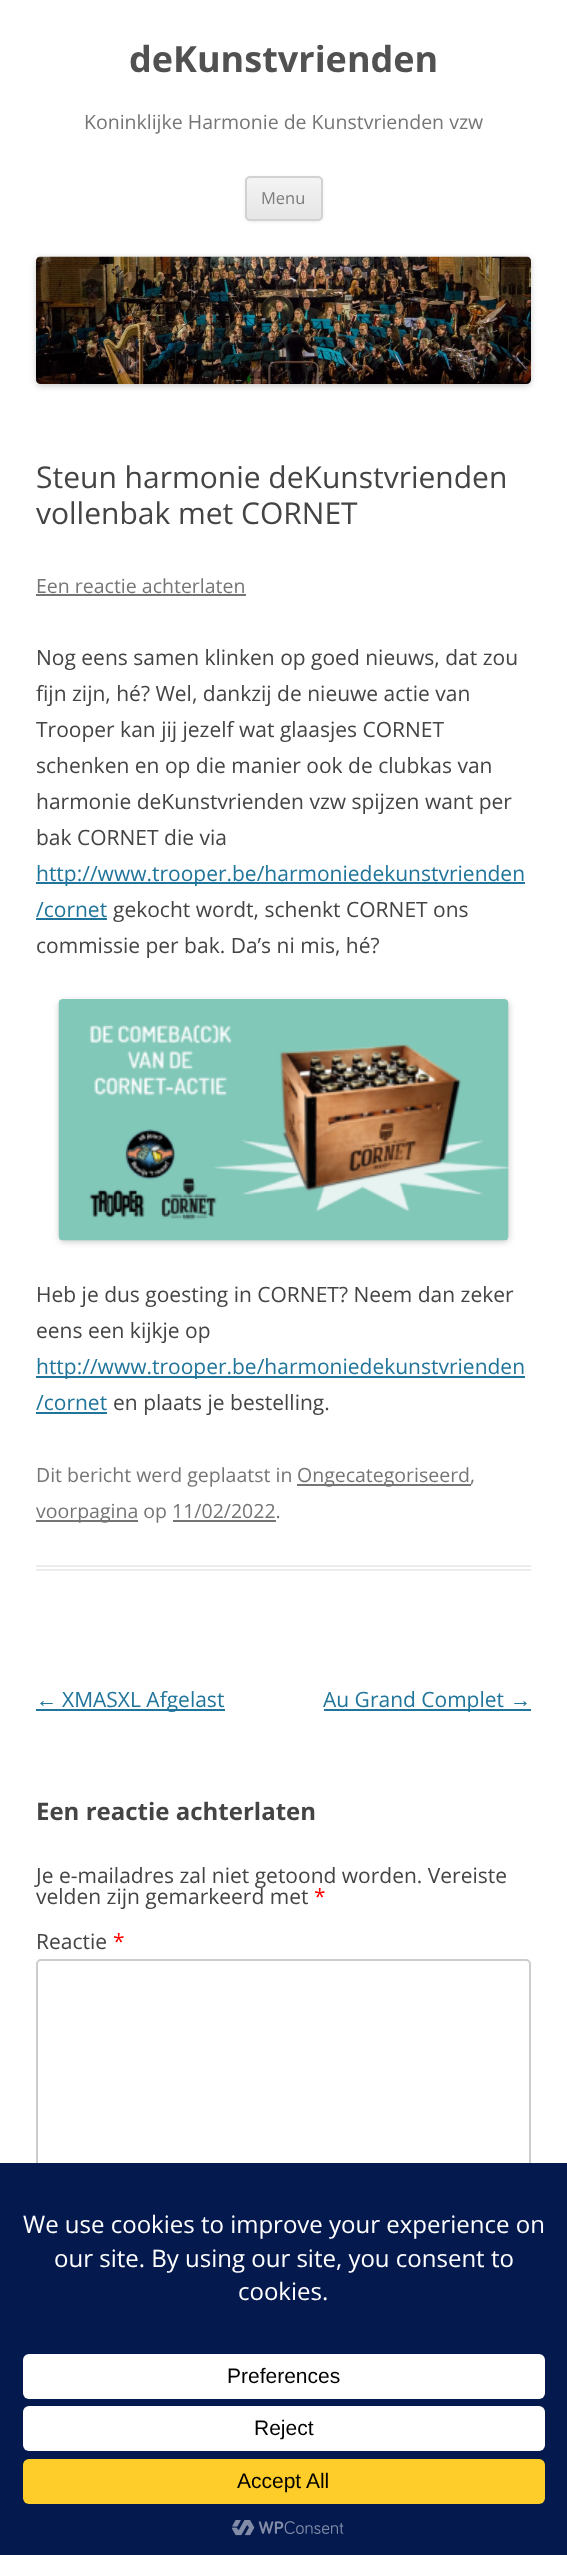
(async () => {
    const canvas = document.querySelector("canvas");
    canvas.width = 567;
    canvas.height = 2555;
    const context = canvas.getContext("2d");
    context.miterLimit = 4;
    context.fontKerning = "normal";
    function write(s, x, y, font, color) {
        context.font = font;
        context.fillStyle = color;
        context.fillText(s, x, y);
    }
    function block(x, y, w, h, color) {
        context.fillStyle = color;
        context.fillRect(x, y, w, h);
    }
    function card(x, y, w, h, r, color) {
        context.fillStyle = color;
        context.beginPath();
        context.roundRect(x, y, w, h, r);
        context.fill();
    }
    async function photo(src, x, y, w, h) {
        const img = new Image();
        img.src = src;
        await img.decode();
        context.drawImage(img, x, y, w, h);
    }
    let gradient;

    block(0, 0, 567, 2555, "rgb(255, 255, 255)");
    write("deKunstvrienden", 129, 72, "bold 36px Open Sans", "rgb(81, 81, 81)");
    write("Koninklijke Harmonie de Kunstvrienden vzw", 84, 129, "19.5px Open Sans", "rgb(117, 117, 117)");
    context.fillStyle = "rgba(64, 64, 64, 0.1)";
    context.filter = "blur(1.5px)";
    context.beginPath();
    context.roundRect(245, 177, 78, 45, 5);
    context.fill();
    context.filter = "none";
    context.save();
    context.beginPath();
    context.roundRect(245, 176, 78, 45, 5);
    context.clip();
    gradient = context.createLinearGradient(284, 177, 284, 219);
    gradient.addColorStop(0, "rgb(244, 244, 244)");
    gradient.addColorStop(1, "rgb(230, 230, 230)");
    context.fillStyle = gradient;
    context.fillRect(245, 177, 78, 42);
    context.restore();
    context.beginPath();
    context.roundRect(246, 177, 76, 43, 4);
    context.strokeStyle = "rgb(210, 210, 210)";
    context.lineWidth = 2;
    context.stroke();
    write("Menu", 261, 204, "16.5px Open Sans", "rgb(124, 124, 124)");
    context.fillStyle = "rgba(0, 0, 0, 0.2)";
    context.filter = "blur(3px)";
    context.beginPath();
    context.roundRect(36, 258, 495, 128, 5);
    context.fill();
    context.filter = "none";
    await photo("media/1.png", 36, 256, 495, 128);
    block(36, 1565, 495, 2, "rgb(237, 237, 237)");
    block(36, 1569, 495, 2, "rgb(237, 237, 237)");
    write("Steun harmonie deKunstvrienden", 36, 488, "30px Open Sans", "rgb(68, 68, 68)");
    write("vollenbak met CORNET", 36, 524, "30px Open Sans", "rgb(68, 68, 68)");
    write("Een reactie achterlaten", 36, 593, "19.5px Open Sans", "rgb(117, 117, 117)");
    block(36, 594, 210, 2, "rgb(117, 117, 117)");
    write("Nog eens samen klinken op goed nieuws, dat zou", 36, 665, "21px Open Sans", "rgb(68, 68, 68)");
    write("fijn zijn, hé? Wel, dankzij de nieuwe actie van", 36, 701, "21px Open Sans", "rgb(68, 68, 68)");
    write("Trooper kan jij jezelf wat glaasjes CORNET", 36, 737, "21px Open Sans", "rgb(68, 68, 68)");
    write("schenken en op die manier ook de clubkas van", 36, 773, "21px Open Sans", "rgb(68, 68, 68)");
    write("harmonie deKunstvrienden vzw spijzen want per", 36, 809, "21px Open Sans", "rgb(68, 68, 68)");
    write("bak CORNET die via", 36, 845, "21px Open Sans", "rgb(68, 68, 68)");
    block(36, 882, 489, 2, "rgb(33, 117, 155)");
    write("http://www.trooper.be/harmoniedekunstvrienden", 36, 881, "21px Open Sans", "rgb(33, 117, 155)");
    write("/cornet", 36, 917, "21px Open Sans", "rgb(33, 117, 155)");
    block(36, 918, 71, 2, "rgb(33, 117, 155)");
    write("gekocht wordt, schenkt CORNET ons", 113, 917, "21px Open Sans", "rgb(68, 68, 68)");
    write("commissie per bak. Da’s ni mis, hé?", 36, 953, "21px Open Sans", "rgb(68, 68, 68)");
    context.fillStyle = "rgba(0, 0, 0, 0.2)";
    context.filter = "blur(3px)";
    context.beginPath();
    context.roundRect(59, 1001, 450, 241, 5);
    context.fill();
    context.filter = "none";
    await photo("media/2.png", 58, 999, 451, 242);
    write("Heb je dus goesting in CORNET? Neem dan zeker", 36, 1302, "21px Open Sans", "rgb(68, 68, 68)");
    write("eens een kijkje op", 36, 1338, "21px Open Sans", "rgb(68, 68, 68)");
    block(36, 1376, 489, 2, "rgb(33, 117, 155)");
    write("http://www.trooper.be/harmoniedekunstvrienden", 36, 1374, "21px Open Sans", "rgb(33, 117, 155)");
    write("/cornet", 36, 1410, "21px Open Sans", "rgb(33, 117, 155)");
    block(36, 1412, 71, 2, "rgb(33, 117, 155)");
    write("en plaats je bestelling.", 113, 1410, "21px Open Sans", "rgb(68, 68, 68)");
    write("Dit bericht werd geplaatst in", 36, 1482, "19.5px Open Sans", "rgb(117, 117, 117)");
    block(297, 1484, 174, 2, "rgb(117, 117, 117)");
    write("Ongecategoriseerd,", 297, 1482, "19.5px Open Sans", "rgb(117, 117, 117)");
    block(36, 1520, 102, 2, "rgb(117, 117, 117)");
    write("voorpagina op 11/02/2022.", 36, 1518, "19.5px Open Sans", "rgb(117, 117, 117)");
    block(173, 1520, 103, 2, "rgb(117, 117, 117)");
    write("←", 36, 1707, "21px Liberation Sans", "rgb(33, 117, 155)");
    block(36, 1709, 189, 2, "rgb(33, 117, 155)");
    write("XMASXL Afgelast", 62, 1707, "21px Open Sans", "rgb(33, 117, 155)");
    block(324, 1709, 207, 2, "rgb(33, 117, 155)");
    write("Au Grand Complet", 323, 1707, "21px Open Sans", "rgb(33, 117, 155)");
    write("→", 510, 1707, "21px Liberation Sans", "rgb(33, 117, 155)");
    write("Een reactie achterlaten", 36, 1820, "bold 24px Open Sans", "rgb(68, 68, 68)");
    write("Je e-mailadres zal niet getoond worden. Vereiste", 36, 1883, "21px Open Sans", "rgb(68, 68, 68)");
    write("velden zijn gemarkeerd met", 36, 1904, "21px Open Sans", "rgb(68, 68, 68)");
    write("*", 314, 1904, "21px Open Sans", "rgb(255, 0, 0)");
    write("Reactie", 36, 1949, "21px Open Sans", "rgb(68, 68, 68)");
    write("*", 113, 1949, "21px Open Sans", "rgb(255, 0, 0)");
    context.beginPath();
    context.roundRect(37, 1960, 493, 279, 4);
    context.strokeStyle = "rgb(204, 204, 204)";
    context.stroke();
    block(0, 2163, 567, 392, "rgb(4, 25, 78)");
    write("We use cookies to improve your experience on", 23, 2233, "24px Open Sans", "rgb(255, 255, 255)");
    write("our site. By using our site, you consent to", 54, 2267, "24px Open Sans", "rgb(255, 255, 255)");
    write("cookies.", 238, 2300, "24px Open Sans", "rgb(255, 255, 255)");
    card(23, 2354, 522, 45, 6, "rgb(255, 255, 255)");
    write("Preferences", 227, 2383, "21px Liberation Sans", "rgb(0, 0, 0)");
    card(23, 2406, 522, 45, 6, "rgb(255, 255, 255)");
    write("Reject", 254, 2435, "21px Liberation Sans", "rgb(0, 0, 0)");
    card(23, 2459, 522, 45, 6, "rgb(255, 205, 42)");
    write("Accept All", 237, 2488, "21px Liberation Sans", "rgb(0, 0, 0)");
    await photo("media/3.png", 232, 2520, 112, 16);
})();
